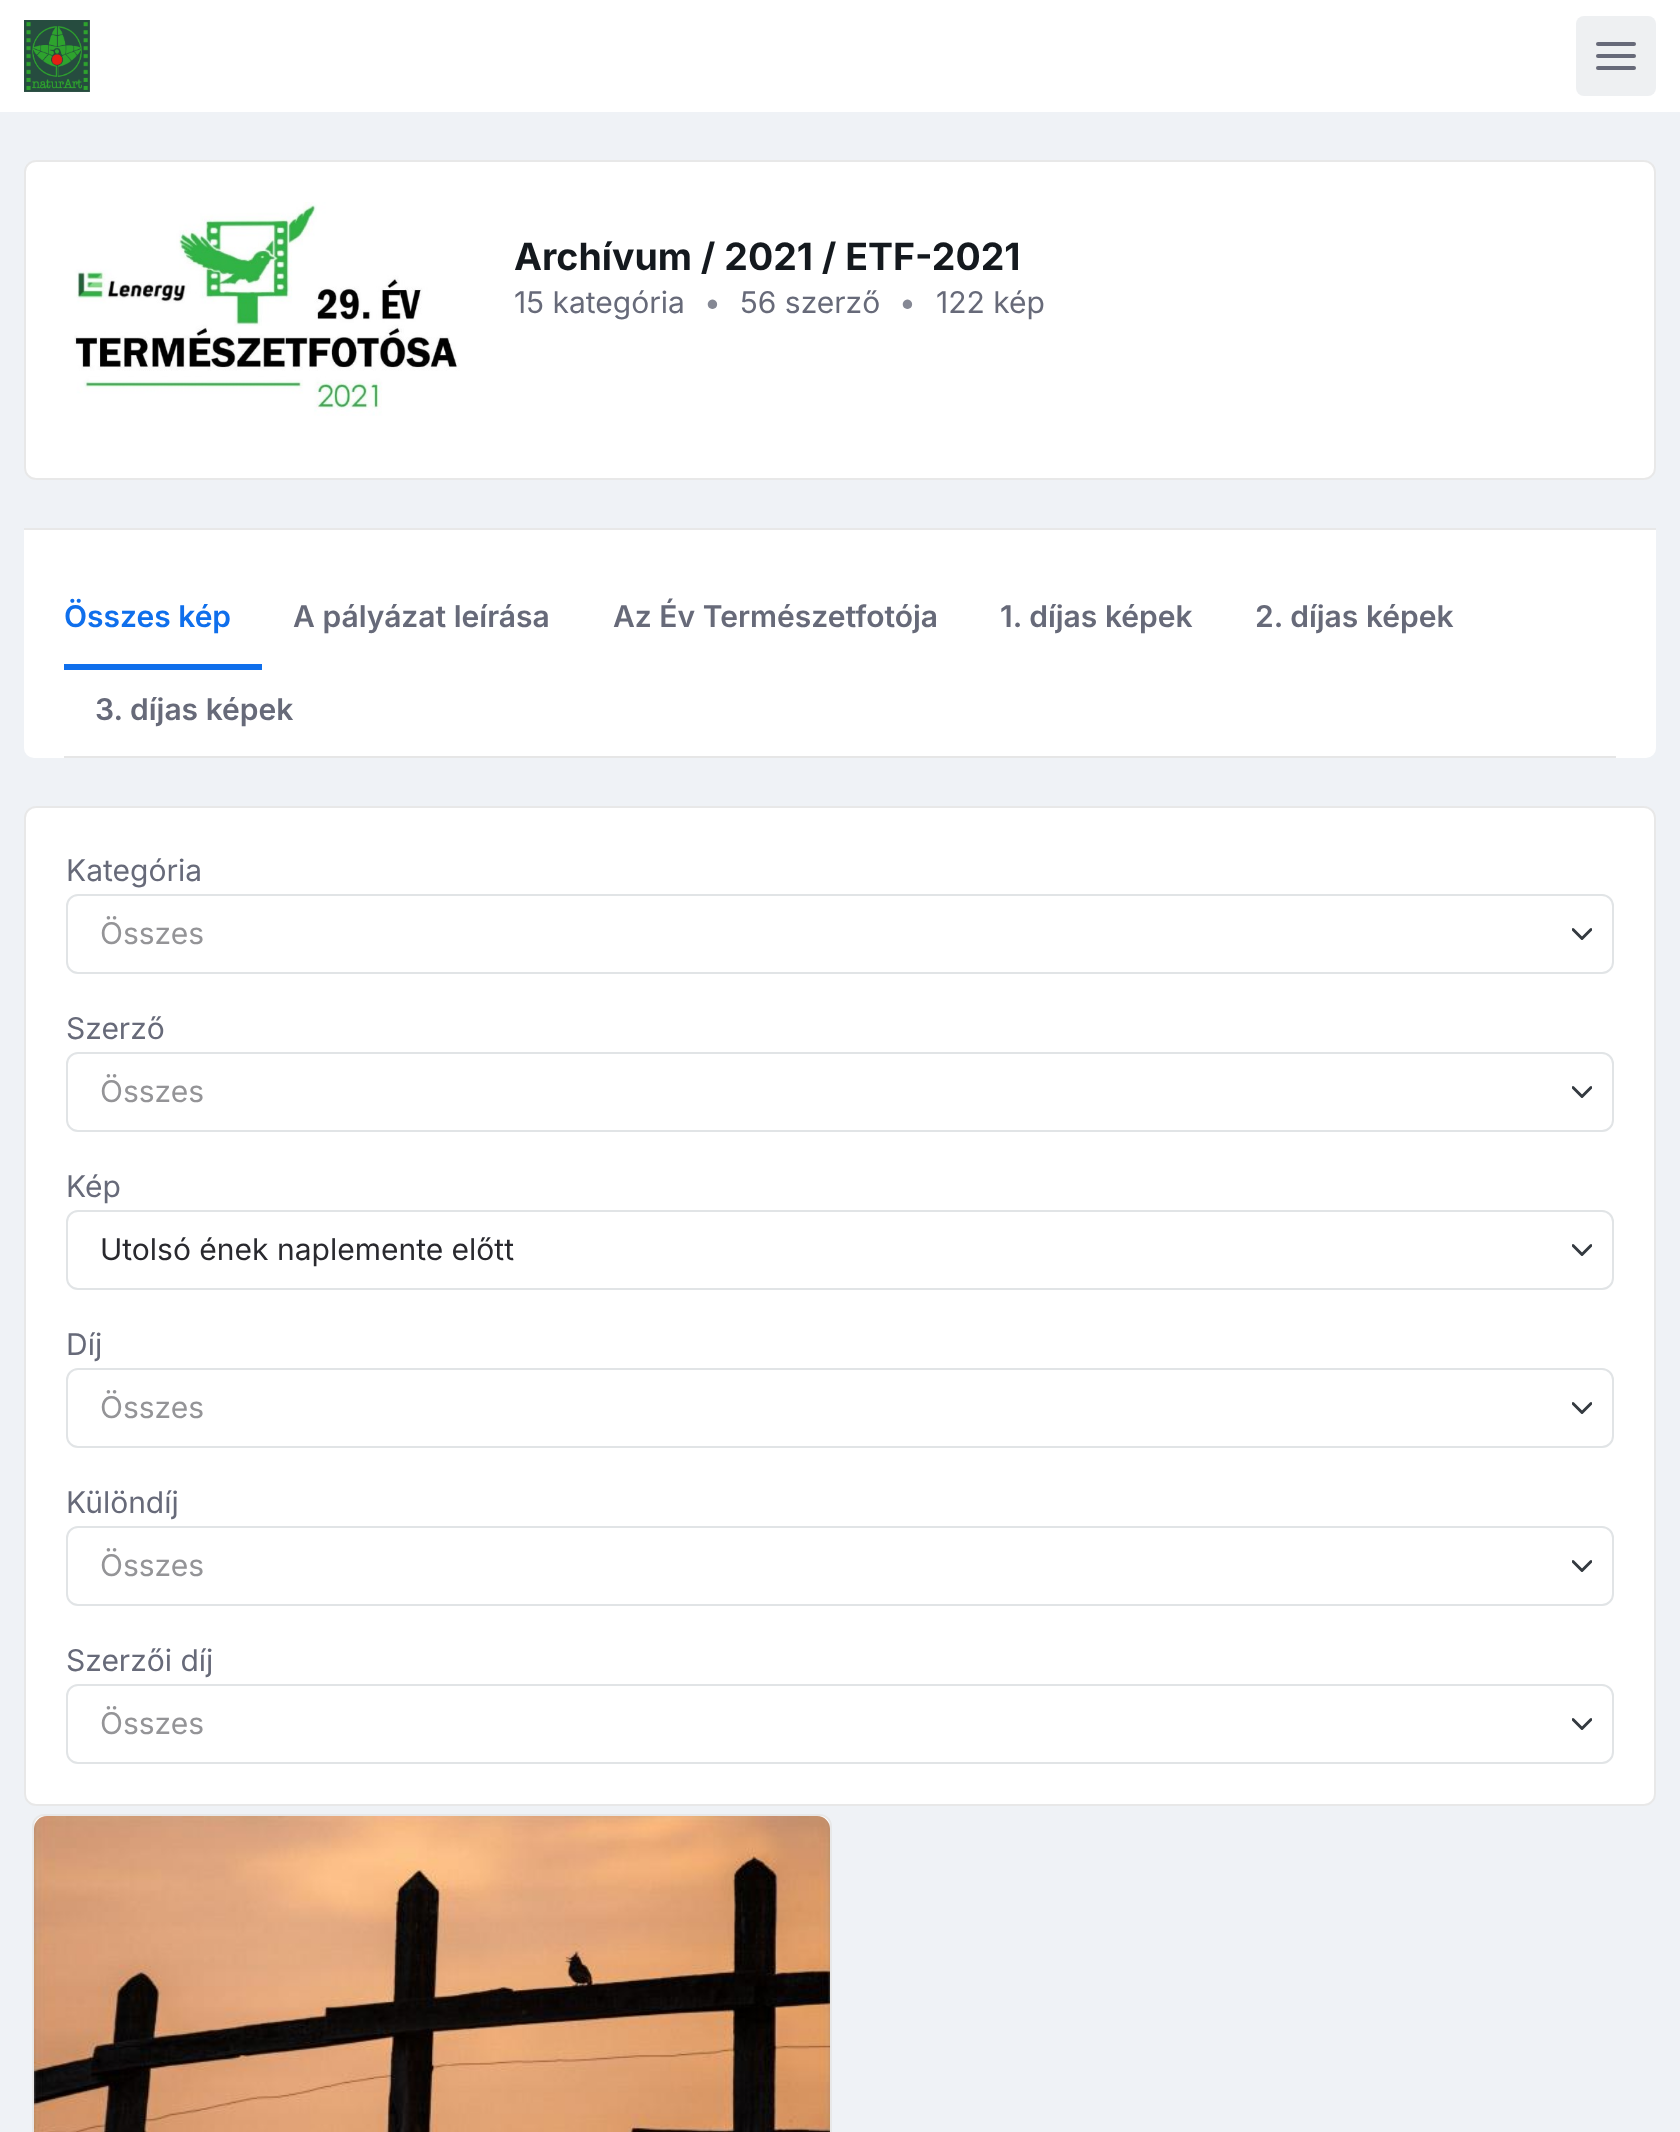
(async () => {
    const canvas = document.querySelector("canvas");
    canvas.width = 1680;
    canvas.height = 2132;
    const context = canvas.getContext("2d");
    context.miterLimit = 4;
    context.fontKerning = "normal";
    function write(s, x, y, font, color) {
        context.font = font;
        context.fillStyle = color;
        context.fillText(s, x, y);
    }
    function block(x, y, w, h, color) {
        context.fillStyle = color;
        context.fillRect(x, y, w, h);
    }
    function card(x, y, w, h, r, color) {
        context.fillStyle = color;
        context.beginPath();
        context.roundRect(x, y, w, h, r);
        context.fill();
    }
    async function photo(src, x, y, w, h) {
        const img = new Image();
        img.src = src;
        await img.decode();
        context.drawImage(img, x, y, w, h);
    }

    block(0, 0, 1680, 2132, "rgb(239, 242, 246)");
    block(0, 0, 1680, 112, "rgb(255, 255, 255)");
    await photo("media/1.png", 24, 20, 66, 72);
    card(1576, 16, 80, 80, 8, "rgb(238, 240, 242)");
    card(1596, 42, 40, 4, 2, "rgb(103, 106, 121)");
    card(1596, 54, 40, 4, 2, "rgb(103, 106, 121)");
    card(1596, 66, 40, 4, 2, "rgb(103, 106, 121)");
    card(24, 160, 1632, 320, 12, "rgb(255, 255, 255)");
    context.beginPath();
    context.roundRect(25, 161, 1630, 318, 11);
    context.strokeStyle = "rgba(0, 0, 0, 0.09)";
    context.lineWidth = 2;
    context.stroke();
    await photo("media/2.png", 74, 202, 386, 214);
    write("Archívum / 2021 / ETF-2021", 514, 270, "bold 37.5px Inter", "rgb(20, 25, 30)");
    write("15 kategória", 514, 313, "30px Inter", "rgb(103, 106, 121)");
    write("•", 704, 313, "30px Inter", "rgb(133, 136, 148)");
    write("56 szerző", 740, 313, "30px Inter", "rgb(103, 106, 121)");
    write("•", 899, 313, "30px Inter", "rgb(133, 136, 148)");
    write("122 kép", 936, 313, "30px Inter", "rgb(103, 106, 121)");
    context.fillStyle = "rgb(255, 255, 255)";
    context.beginPath();
    context.roundRect(24, 528, 1632, 230, [0, 0, 10, 10]);
    context.fill();
    block(24, 528, 1632, 2, "rgb(232, 232, 232)");
    block(64, 756, 1552, 2, "rgb(230, 230, 230)");
    block(64, 664, 198, 6, "rgb(15, 111, 236)");
    write("Összes kép", 64, 627, "600 30px Inter", "rgb(15, 111, 236)");
    write("A pályázat leírása", 293, 627, "600 30px Inter", "rgb(103, 106, 121)");
    write("Az Év Természetfotója", 613, 627, "600 30px Inter", "rgb(103, 106, 121)");
    write("1. díjas képek", 1000, 627, "600 30px Inter", "rgb(103, 106, 121)");
    write("2. díjas képek", 1255, 627, "600 30px Inter", "rgb(103, 106, 121)");
    write("3. díjas képek", 95, 720, "600 30px Inter", "rgb(103, 106, 121)");
    card(24, 806, 1632, 1000, 12, "rgb(255, 255, 255)");
    context.beginPath();
    context.roundRect(25, 807, 1630, 998, 11);
    context.stroke();
    write("Kategória", 66, 881, "30px Inter", "rgb(103, 106, 121)");
    context.beginPath();
    context.roundRect(67, 895, 1546, 78, 11);
    context.strokeStyle = "rgb(225, 228, 230)";
    context.stroke();
    write("Összes", 100, 944, "30px Inter", "rgb(148, 148, 151)");
    context.save();
    context.beginPath();
    context.rect(1572, 924, 20, 20);
    context.clip();
    context.beginPath();
    context.moveTo(1573, 929.5);
    context.lineTo(1582, 938.5);
    context.lineTo(1591, 929.5);
    context.strokeStyle = "rgb(52, 58, 64)";
    context.lineWidth = 3;
    context.lineCap = "round";
    context.lineJoin = "round";
    context.stroke();
    context.restore();
    write("Szerző", 66, 1039, "30px Inter", "rgb(103, 106, 121)");
    context.beginPath();
    context.roundRect(67, 1053, 1546, 78, 11);
    context.stroke();
    write("Összes", 100, 1102, "30px Inter", "rgb(148, 148, 151)");
    context.save();
    context.beginPath();
    context.rect(1572, 1082, 20, 20);
    context.clip();
    context.beginPath();
    context.moveTo(1573, 1087.5);
    context.lineTo(1582, 1096.5);
    context.lineTo(1591, 1087.5);
    context.strokeStyle = "rgb(52, 58, 64)";
    context.lineWidth = 3;
    context.lineCap = "round";
    context.lineJoin = "round";
    context.stroke();
    context.restore();
    write("Kép", 66, 1197, "30px Inter", "rgb(103, 106, 121)");
    context.beginPath();
    context.roundRect(67, 1211, 1546, 78, 11);
    context.stroke();
    write("Utolsó ének naplemente előtt", 100, 1260, "30px Inter", "rgb(41, 41, 46)");
    context.save();
    context.beginPath();
    context.rect(1572, 1240, 20, 20);
    context.clip();
    context.beginPath();
    context.moveTo(1573, 1245.5);
    context.lineTo(1582, 1254.5);
    context.lineTo(1591, 1245.5);
    context.strokeStyle = "rgb(52, 58, 64)";
    context.lineWidth = 3;
    context.lineCap = "round";
    context.lineJoin = "round";
    context.stroke();
    context.restore();
    write("Díj", 66, 1355, "30px Inter", "rgb(103, 106, 121)");
    context.beginPath();
    context.roundRect(67, 1369, 1546, 78, 11);
    context.stroke();
    write("Összes", 100, 1418, "30px Inter", "rgb(148, 148, 151)");
    context.save();
    context.beginPath();
    context.rect(1572, 1398, 20, 20);
    context.clip();
    context.beginPath();
    context.moveTo(1573, 1403.5);
    context.lineTo(1582, 1412.5);
    context.lineTo(1591, 1403.5);
    context.strokeStyle = "rgb(52, 58, 64)";
    context.lineWidth = 3;
    context.lineCap = "round";
    context.lineJoin = "round";
    context.stroke();
    context.restore();
    write("Különdíj", 66, 1513, "30px Inter", "rgb(103, 106, 121)");
    context.beginPath();
    context.roundRect(67, 1527, 1546, 78, 11);
    context.stroke();
    write("Összes", 100, 1576, "30px Inter", "rgb(148, 148, 151)");
    context.save();
    context.beginPath();
    context.rect(1572, 1556, 20, 20);
    context.clip();
    context.beginPath();
    context.moveTo(1573, 1561.5);
    context.lineTo(1582, 1570.5);
    context.lineTo(1591, 1561.5);
    context.strokeStyle = "rgb(52, 58, 64)";
    context.lineWidth = 3;
    context.lineCap = "round";
    context.lineJoin = "round";
    context.stroke();
    context.restore();
    write("Szerzői díj", 66, 1671, "30px Inter", "rgb(103, 106, 121)");
    context.beginPath();
    context.roundRect(67, 1685, 1546, 78, 11);
    context.stroke();
    write("Összes", 100, 1734, "30px Inter", "rgb(148, 148, 151)");
    context.save();
    context.beginPath();
    context.rect(1572, 1714, 20, 20);
    context.clip();
    context.beginPath();
    context.moveTo(1573, 1719.5);
    context.lineTo(1582, 1728.5);
    context.lineTo(1591, 1719.5);
    context.strokeStyle = "rgb(52, 58, 64)";
    context.lineWidth = 3;
    context.lineCap = "round";
    context.lineJoin = "round";
    context.stroke();
    context.restore();
    card(32, 1814, 800, 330, 12, "rgb(255, 255, 255)");
    context.beginPath();
    context.roundRect(33, 1815, 798, 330, 11);
    context.strokeStyle = "rgba(0, 0, 0, 0.09)";
    context.stroke();
    await photo("media/3.png", 34, 1816, 796, 316);
})();
